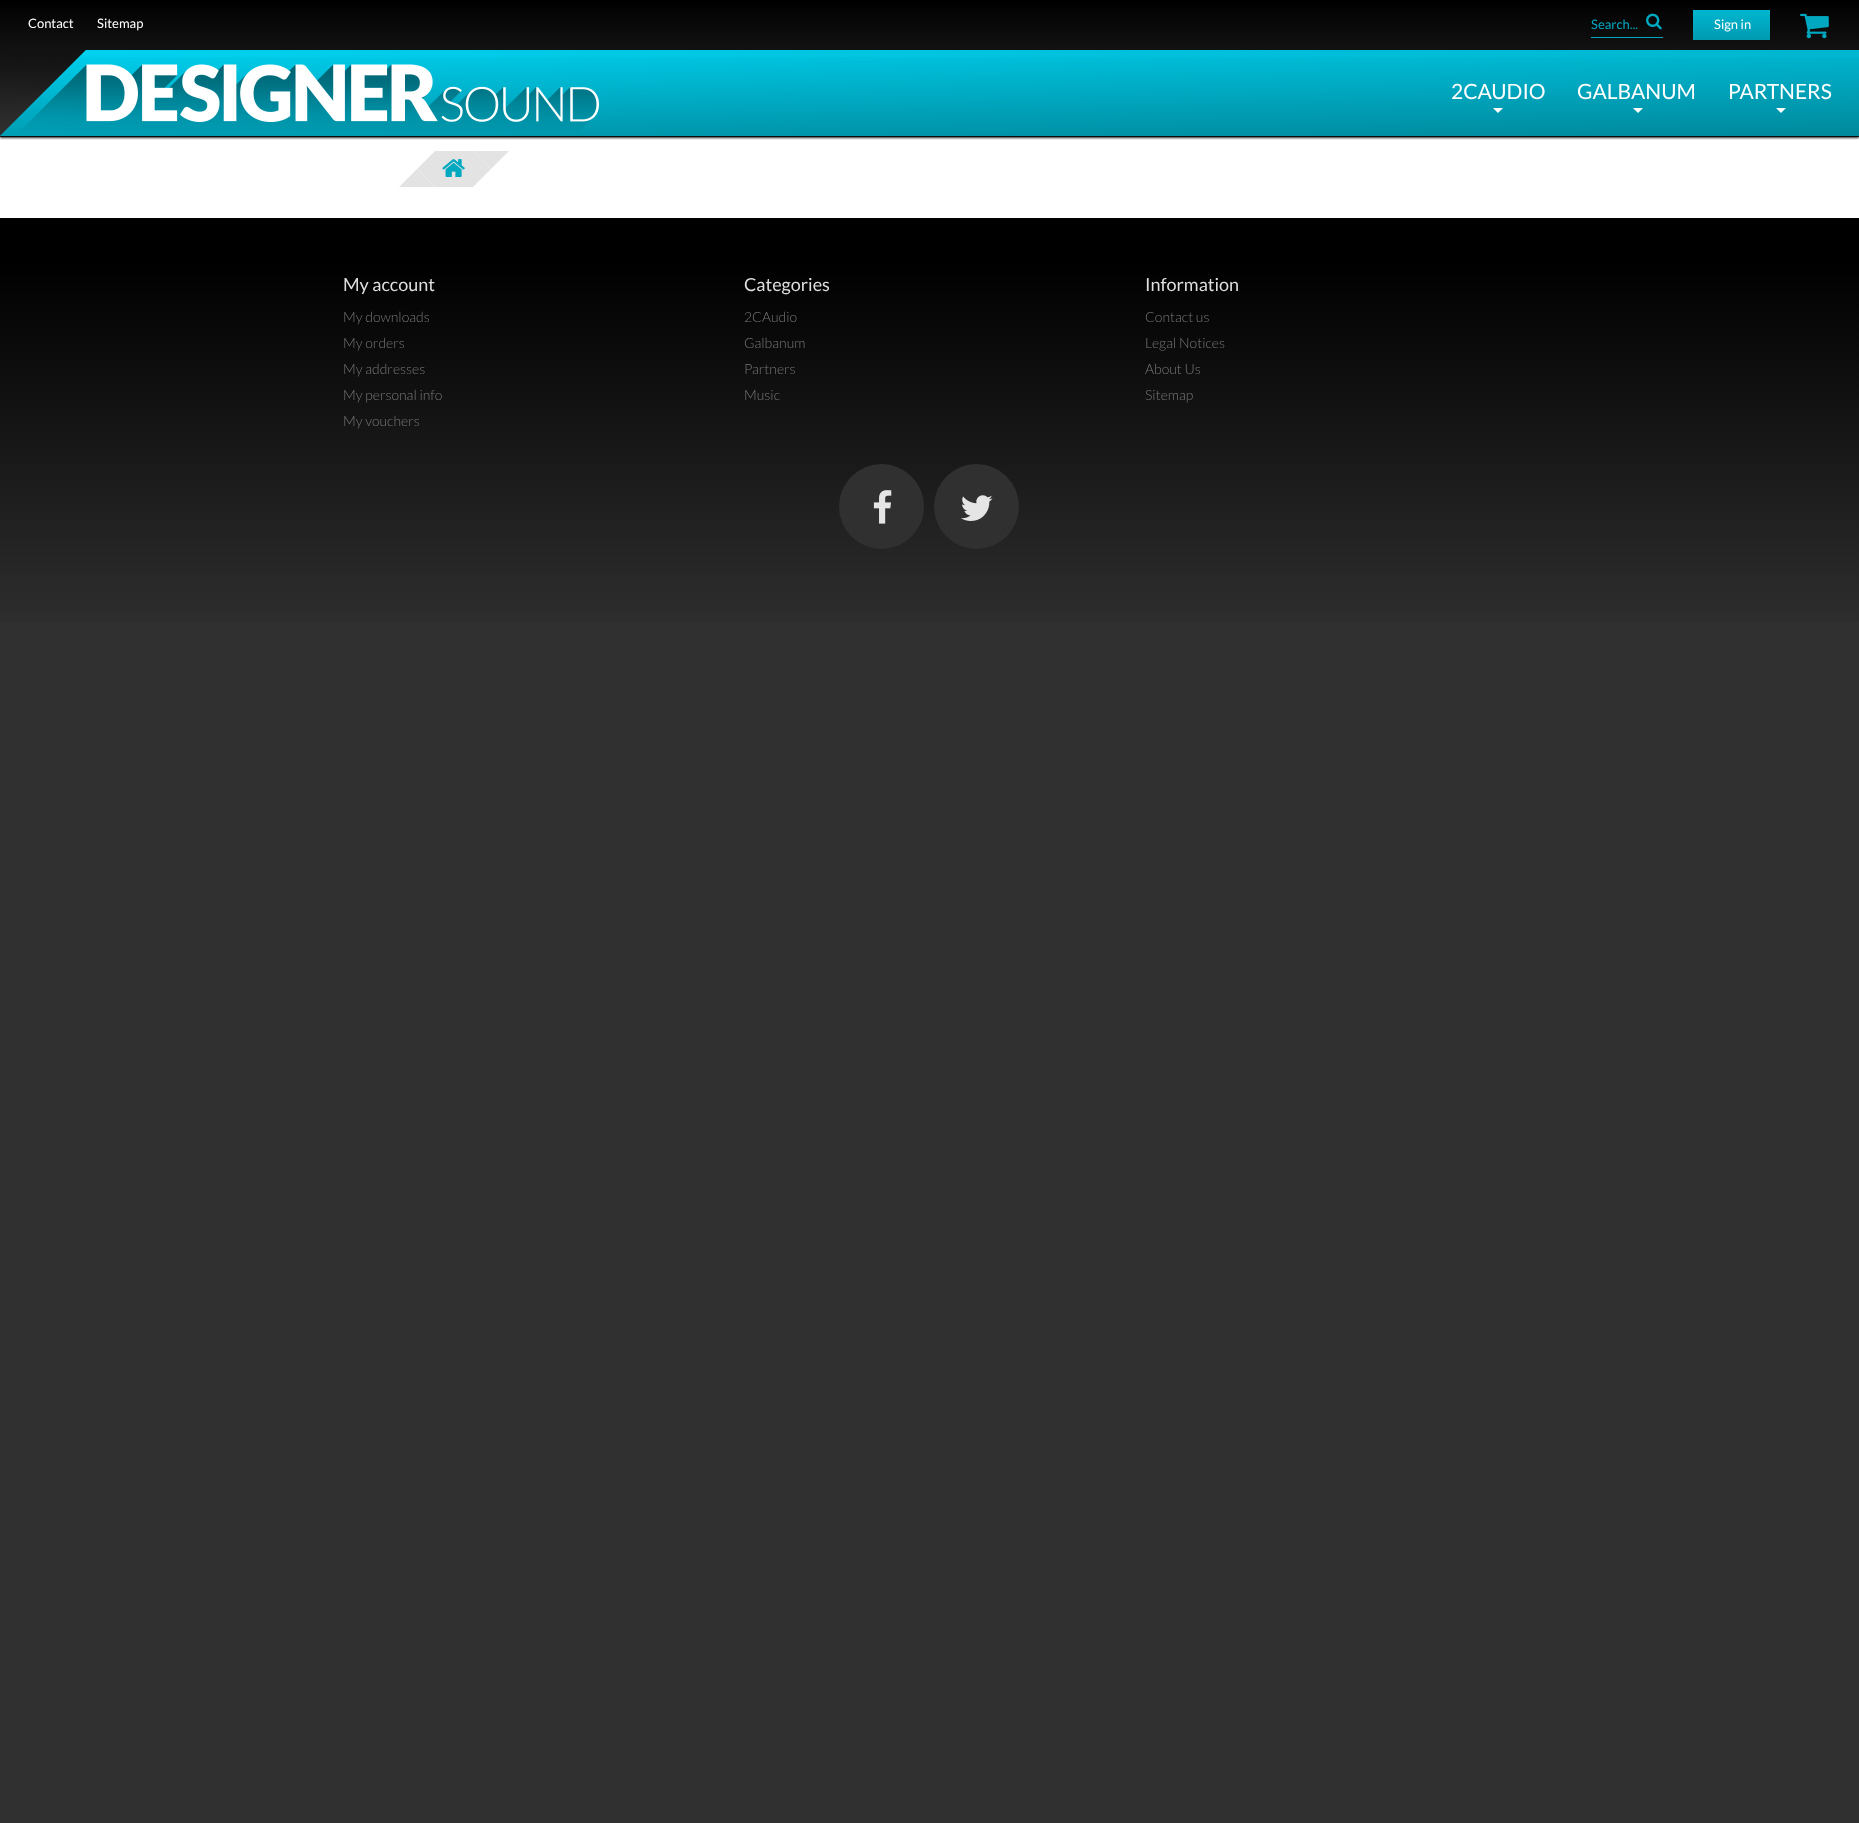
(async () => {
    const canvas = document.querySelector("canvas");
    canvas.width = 1859;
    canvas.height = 1823;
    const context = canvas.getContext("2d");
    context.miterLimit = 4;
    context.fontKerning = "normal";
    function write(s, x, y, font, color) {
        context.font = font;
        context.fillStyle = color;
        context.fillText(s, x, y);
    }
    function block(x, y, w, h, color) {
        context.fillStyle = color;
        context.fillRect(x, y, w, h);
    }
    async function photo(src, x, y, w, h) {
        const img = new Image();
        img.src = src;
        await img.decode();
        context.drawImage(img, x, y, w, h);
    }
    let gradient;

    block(0, 0, 1859, 1823, "rgb(48, 48, 48)");
    gradient = context.createLinearGradient(930, 0, 930, 50);
    gradient.addColorStop(0, "rgb(0, 0, 0)");
    gradient.addColorStop(1, "rgb(18, 18, 18)");
    context.fillStyle = gradient;
    context.fillRect(0, 0, 1859, 50);
    write("Contact", 28, 28, "13px Lato", "rgb(255, 255, 255)");
    write("Sitemap", 97, 28, "13px Lato", "rgb(255, 255, 255)");
    block(1591, 37, 72, 1, "rgb(0, 168, 192)");
    write("Search...", 1591, 29, "13px Lato", "rgb(0, 168, 192)");
    await photo("media/1.png", 1646, 13, 16, 17);
    gradient = context.createLinearGradient(1732, 10, 1732, 40);
    gradient.addColorStop(0, "rgb(0, 182, 208)");
    gradient.addColorStop(1, "rgb(0, 154, 176)");
    context.fillStyle = gradient;
    context.fillRect(1693, 10, 77, 30);
    write("Sign in", 1714, 29, "13px Lato", "rgb(255, 255, 255)");
    await photo("media/2.png", 1800, 13, 29, 26);
    gradient = context.createLinearGradient(0, 93, 1859, 93);
    gradient.addColorStop(0, "rgb(0, 210, 240)");
    gradient.addColorStop(1, "rgb(0, 182, 208)");
    context.fillStyle = gradient;
    context.fillRect(0, 50, 1859, 86);
    gradient = context.createLinearGradient(930, 50, 930, 136);
    gradient.addColorStop(0, "rgba(0, 0, 0, 0)");
    gradient.addColorStop(1, "rgba(0, 0, 0, 0.25)");
    context.fillStyle = gradient;
    context.fillRect(0, 57, 1859, 79);
    block(0, 137, 1859, 81, "rgb(255, 255, 255)");
    context.save();
    context.beginPath();
    context.rect(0, 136, 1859, 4);
    context.clip();
    context.fillStyle = "rgba(0, 0, 0, 0.85)";
    context.filter = "blur(1px)";
    context.beginPath();
    context.rect(0, 52, 1859, 86);
    context.fill();
    context.filter = "none";
    context.restore();
    await photo("media/3.png", 0, 50, 86, 86);
    await photo("media/4.png", 21, 64, 578, 67);
    write("2CAUDIO", 1451, 99, "21px Lato", "rgb(255, 255, 255)");
    context.beginPath();
    context.moveTo(1493, 108);
    context.lineTo(1503, 108);
    context.lineTo(1498, 113);
    context.closePath();
    context.fill();
    write("GALBANUM", 1577, 99, "21px Lato", "rgb(255, 255, 255)");
    context.beginPath();
    context.moveTo(1633, 108);
    context.lineTo(1643, 108);
    context.lineTo(1638, 113);
    context.closePath();
    context.fill();
    write("PARTNERS", 1728, 99, "21px Lato", "rgb(255, 255, 255)");
    context.beginPath();
    context.moveTo(1776, 108);
    context.lineTo(1786, 108);
    context.lineTo(1781, 113);
    context.closePath();
    context.fill();
    block(435, 151, 38, 36, "rgb(227, 227, 227)");
    context.beginPath();
    context.moveTo(435, 151);
    context.lineTo(435, 187);
    context.lineTo(417, 169);
    context.closePath();
    context.fill();
    context.beginPath();
    context.moveTo(435, 187);
    context.lineTo(399, 187);
    context.lineTo(417, 169);
    context.closePath();
    context.fill();
    await photo("media/5.png", 442, 159, 23, 18);
    context.beginPath();
    context.moveTo(473, 151);
    context.lineTo(509, 151);
    context.lineTo(491, 169);
    context.closePath();
    context.fill();
    context.beginPath();
    context.moveTo(473, 187);
    context.lineTo(473, 151);
    context.lineTo(491, 169);
    context.closePath();
    context.fill();
    gradient = context.createLinearGradient(930, 218, 930, 642);
    gradient.addColorStop(0.1, "rgb(0, 0, 0)");
    gradient.addColorStop(1, "rgb(48, 48, 48)");
    context.fillStyle = gradient;
    context.fillRect(0, 218, 1859, 404);
    write("My account", 343, 291, "18px Lato", "rgb(223, 223, 223)");
    write("My downloads", 343, 322, "300 14px Lato", "rgb(119, 119, 119)");
    write("My orders", 343, 348, "300 14px Lato", "rgb(119, 119, 119)");
    write("My addresses", 343, 374, "300 14px Lato", "rgb(119, 119, 119)");
    write("My personal info", 343, 400, "300 14px Lato", "rgb(119, 119, 119)");
    write("My vouchers", 343, 426, "300 14px Lato", "rgb(119, 119, 119)");
    write("Categories", 744, 291, "18px Lato", "rgb(223, 223, 223)");
    write("2CAudio", 744, 322, "300 14px Lato", "rgb(119, 119, 119)");
    write("Galbanum", 744, 348, "300 14px Lato", "rgb(119, 119, 119)");
    write("Partners", 744, 374, "300 14px Lato", "rgb(119, 119, 119)");
    write("Music", 744, 400, "300 14px Lato", "rgb(119, 119, 119)");
    write("Information", 1145, 291, "18px Lato", "rgb(223, 223, 223)");
    write("Contact us", 1145, 322, "300 14px Lato", "rgb(119, 119, 119)");
    write("Legal Notices", 1145, 348, "300 14px Lato", "rgb(119, 119, 119)");
    write("About Us", 1145, 374, "300 14px Lato", "rgb(119, 119, 119)");
    write("Sitemap", 1145, 400, "300 14px Lato", "rgb(119, 119, 119)");
    context.fillStyle = "rgb(48, 48, 48)";
    context.beginPath();
    context.arc(881.5, 506.5, 42.5, 0, Math.PI * 2);
    context.fill();
    await photo("media/6.png", 873, 490, 19, 34);
    context.beginPath();
    context.arc(976.5, 506.5, 42.5, 0, Math.PI * 2);
    context.fill();
    await photo("media/7.png", 961, 495, 32, 26);
})();
